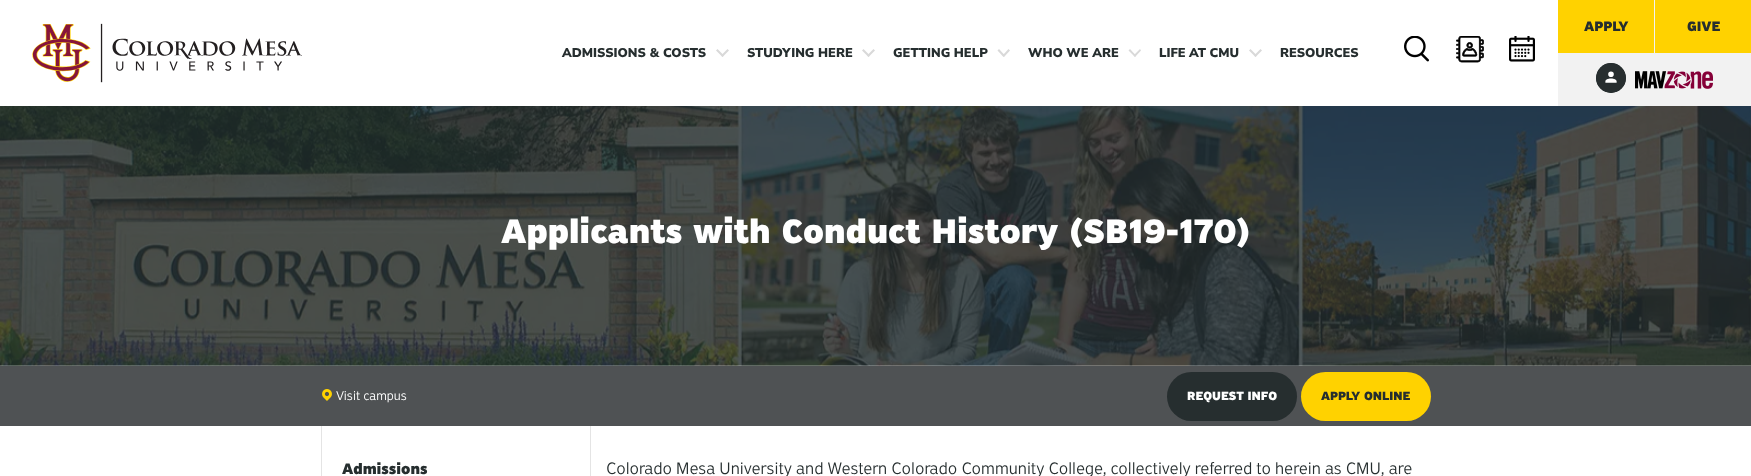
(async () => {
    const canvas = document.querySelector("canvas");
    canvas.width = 1751;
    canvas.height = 476;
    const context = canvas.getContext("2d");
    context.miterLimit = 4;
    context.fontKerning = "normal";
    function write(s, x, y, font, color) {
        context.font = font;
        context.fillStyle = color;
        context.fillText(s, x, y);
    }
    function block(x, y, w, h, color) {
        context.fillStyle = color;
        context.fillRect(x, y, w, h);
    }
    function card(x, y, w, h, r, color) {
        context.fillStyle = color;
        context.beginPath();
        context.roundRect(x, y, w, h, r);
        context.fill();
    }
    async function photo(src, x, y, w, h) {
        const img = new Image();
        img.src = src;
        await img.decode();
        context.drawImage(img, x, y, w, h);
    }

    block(0, 0, 1751, 476, "rgb(255, 255, 255)");
    await photo("media/1.png", 32, 23, 270, 60);
    block(1558, 0, 193, 106, "rgb(242, 242, 242)");
    block(1558, 0, 96, 53, "rgb(255, 210, 0)");
    write("APPLY", 1584, 31, "900 14.5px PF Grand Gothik", "rgb(38, 46, 47)");
    block(1655, 0, 96, 53, "rgb(255, 210, 0)");
    write("GIVE", 1687, 31, "900 14.5px PF Grand Gothik", "rgb(38, 46, 47)");
    context.beginPath();
    context.arc(1611, 78, 15, 0, Math.PI * 2);
    context.fill();
    await photo("media/2.png", 1596, 63, 30, 30);
    await photo("media/3.png", 1635, 71, 78, 18);
    write("ADMISSIONS & COSTS", 562, 57, "900 12.75px Nunito Sans", "rgb(38, 46, 47)");
    context.fillStyle = "rgb(217, 217, 217)";
    context.beginPath();
    context.moveTo(717.5, 49);
    context.lineTo(724, 55.5);
    context.lineTo(722.5, 57);
    context.lineTo(716, 50.5);
    context.closePath();
    context.fill();
    context.beginPath();
    context.moveTo(721, 55.5);
    context.lineTo(727.5, 49);
    context.lineTo(729, 50.5);
    context.lineTo(722.5, 57);
    context.closePath();
    context.fill();
    write("STUDYING HERE", 747, 57, "900 12.75px Nunito Sans", "rgb(38, 46, 47)");
    context.fillStyle = "rgb(217, 217, 217)";
    context.beginPath();
    context.moveTo(863.5, 49);
    context.lineTo(870, 55.5);
    context.lineTo(868.5, 57);
    context.lineTo(862, 50.5);
    context.closePath();
    context.fill();
    context.beginPath();
    context.moveTo(867, 55.5);
    context.lineTo(873.5, 49);
    context.lineTo(875, 50.5);
    context.lineTo(868.5, 57);
    context.closePath();
    context.fill();
    write("GETTING HELP", 893, 57, "900 12.75px Nunito Sans", "rgb(38, 46, 47)");
    context.fillStyle = "rgb(217, 217, 217)";
    context.beginPath();
    context.moveTo(999, 49);
    context.lineTo(1005, 55.5);
    context.lineTo(1003.5, 57);
    context.lineTo(997.5, 50.5);
    context.closePath();
    context.fill();
    context.beginPath();
    context.moveTo(1002.5, 55.5);
    context.lineTo(1008.5, 49);
    context.lineTo(1010, 50.5);
    context.lineTo(1004, 57);
    context.closePath();
    context.fill();
    write("WHO WE ARE", 1028, 57, "900 12.75px Nunito Sans", "rgb(38, 46, 47)");
    context.fillStyle = "rgb(217, 217, 217)";
    context.beginPath();
    context.moveTo(1130, 49);
    context.lineTo(1136, 55.5);
    context.lineTo(1135, 57);
    context.lineTo(1128.5, 50.5);
    context.closePath();
    context.fill();
    context.beginPath();
    context.moveTo(1133.5, 55.5);
    context.lineTo(1140, 49);
    context.lineTo(1141, 50.5);
    context.lineTo(1135, 57);
    context.closePath();
    context.fill();
    write("LIFE", 1159, 57, "900 12.75px Nunito Sans", "rgb(38, 46, 47)");
    write("AT CMU", 1189, 57, "900 12.75px Nunito Sans", "rgb(38, 46, 47)");
    context.fillStyle = "rgb(217, 217, 217)";
    context.beginPath();
    context.moveTo(1250.5, 49);
    context.lineTo(1257, 55.5);
    context.lineTo(1255.5, 57);
    context.lineTo(1249, 50.5);
    context.closePath();
    context.fill();
    context.beginPath();
    context.moveTo(1254, 55.5);
    context.lineTo(1260.5, 49);
    context.lineTo(1262, 50.5);
    context.lineTo(1255.5, 57);
    context.closePath();
    context.fill();
    write("RESOURCES", 1280, 57, "900 12.75px Nunito Sans", "rgb(38, 46, 47)");
    await photo("media/4.png", 1404, 36, 25, 26);
    await photo("media/5.png", 1456, 36, 28, 27);
    await photo("media/6.png", 1509, 36, 26, 26);
    await photo("media/7.png", 0, 106, 1751, 260);
    write("Applicants with Conduct History (SB19-170)", 501, 243, "900 36px PF Grand Gothik", "rgb(255, 255, 255)");
    block(0, 366, 1751, 60, "rgb(79, 82, 84)");
    await photo("media/8.png", 322, 389, 10, 12);
    write("Visit campus", 336, 400, "300 13.5px PF Grand Gothik", "rgb(255, 255, 255)");
    card(1167, 372, 130, 49, 24.5, "rgb(38, 46, 47)");
    write("REQUEST INFO", 1187, 400, "900 12.75px PF Grand Gothik", "rgb(255, 255, 255)");
    card(1301, 372, 130, 49, 24.5, "rgb(255, 210, 0)");
    write("APPLY ONLINE", 1321, 400, "900 12.75px PF Grand Gothik", "rgb(38, 46, 47)");
    block(590, 426, 1, 50, "rgb(228, 228, 228)");
    block(321, 426, 1, 50, "rgb(228, 228, 228)");
    write("Admissions", 342, 474, "900 16px PF Grand Gothik", "rgb(38, 46, 47)");
    write("Colorado Mesa University and Western Colorado Community College, collectively referred to herein as CMU, are", 606, 474, "300 17.6px PF Grand Gothik", "rgb(38, 46, 47)");
})();
